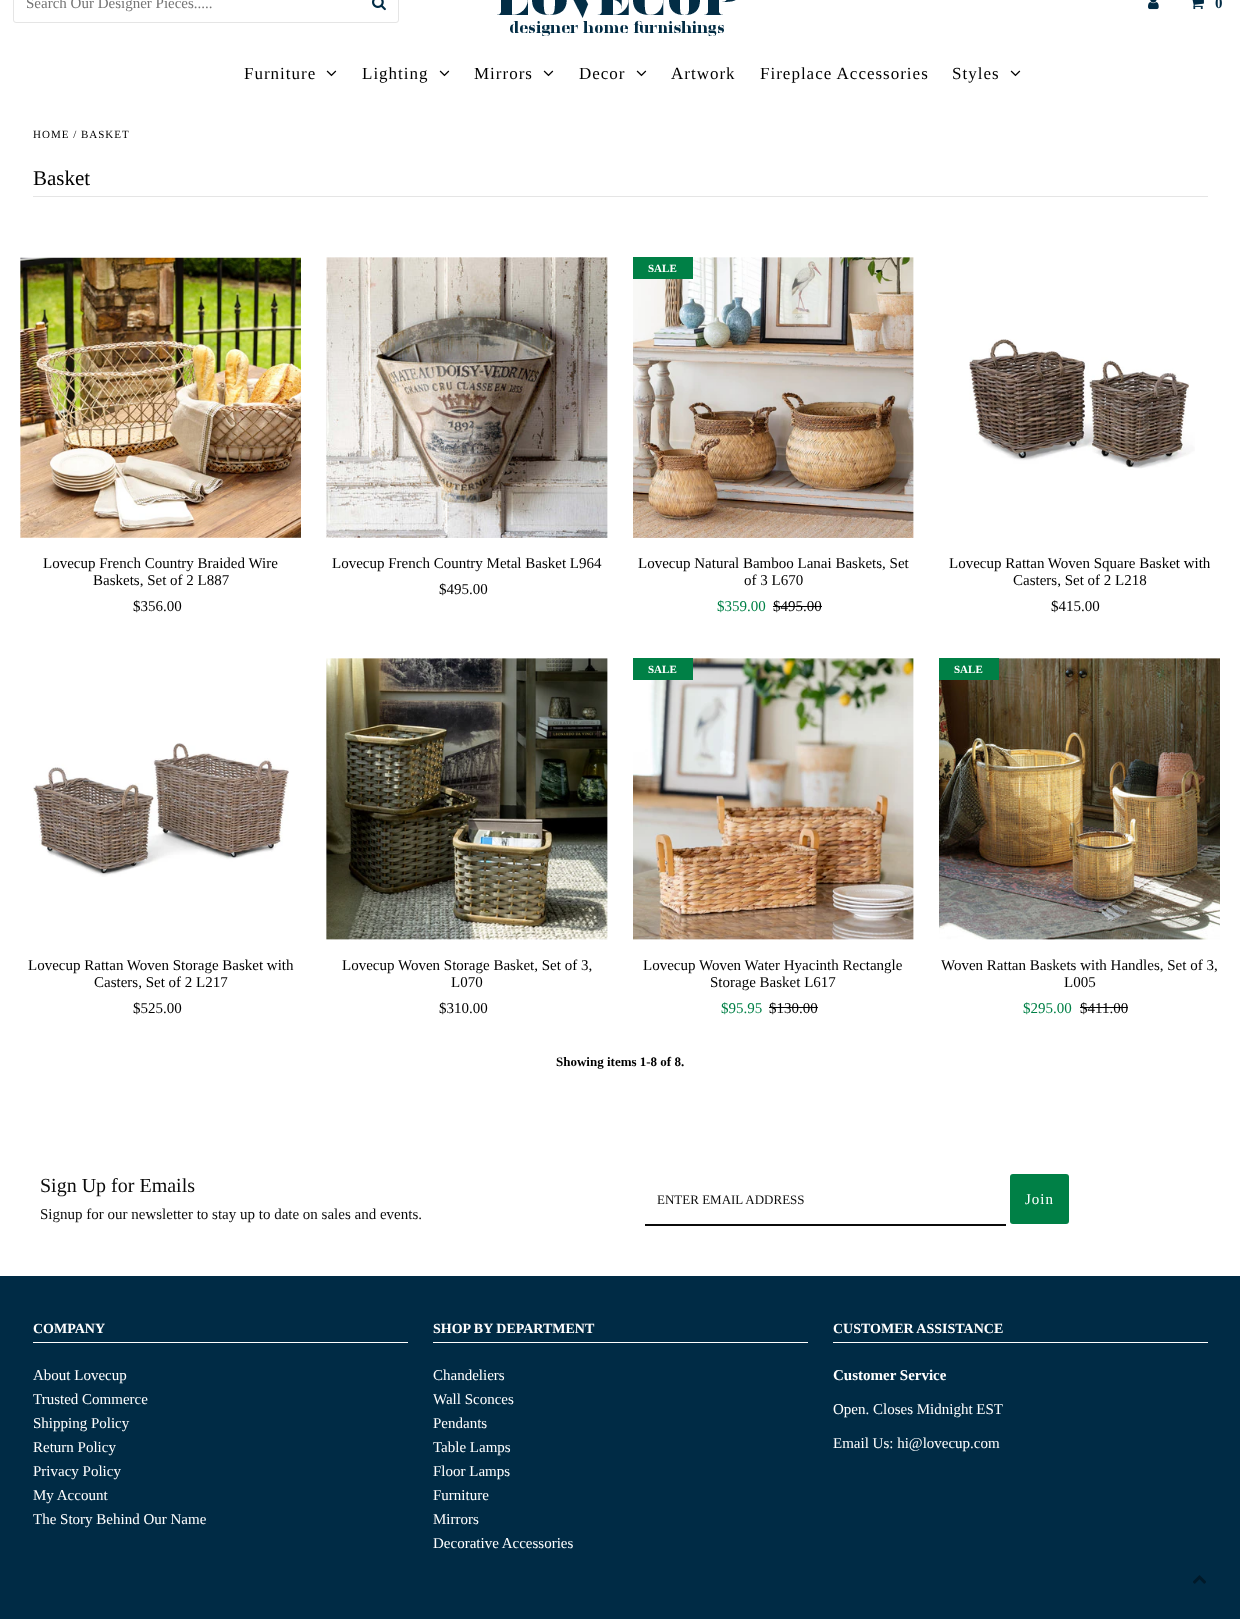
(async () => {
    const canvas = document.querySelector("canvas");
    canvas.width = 1240;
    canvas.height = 1619;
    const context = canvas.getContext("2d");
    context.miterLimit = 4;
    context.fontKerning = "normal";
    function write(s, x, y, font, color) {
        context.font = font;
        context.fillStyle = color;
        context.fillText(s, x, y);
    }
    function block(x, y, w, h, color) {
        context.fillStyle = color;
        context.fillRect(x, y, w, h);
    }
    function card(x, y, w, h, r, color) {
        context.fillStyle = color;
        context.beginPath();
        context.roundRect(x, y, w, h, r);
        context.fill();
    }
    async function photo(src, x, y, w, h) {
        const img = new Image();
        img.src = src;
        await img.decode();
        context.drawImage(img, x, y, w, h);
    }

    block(0, 0, 1240, 1619, "rgb(255, 255, 255)");
    context.beginPath();
    context.roundRect(13.5, -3.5, 385, 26, 2.5);
    context.strokeStyle = "rgb(229, 229, 229)";
    context.stroke();
    write("Search Our Designer Pieces.....", 26, 8, "15px Liberation Serif", "rgb(117, 117, 117)");
    await photo("media/1.png", 372, 0, 14, 11);
    await photo("media/2.png", 497, 0, 239, 36);
    await photo("media/3.png", 1148, 0, 11, 10);
    await photo("media/4.png", 1192, 0, 12, 10);
    context.letterSpacing = "1px";
    write("0", 1215, 8, "bold 15px Liberation Serif", "rgb(0, 43, 69)");
    write("Furniture", 244, 79, "17px Liberation Serif", "rgb(0, 0, 0)");
    await photo("media/5.png", 326, 70, 11, 7);
    write("Lighting", 362, 79, "17px Liberation Serif", "rgb(0, 0, 0)");
    await photo("media/5.png", 439, 70, 11, 7);
    write("Mirrors", 474, 79, "17px Liberation Serif", "rgb(0, 0, 0)");
    await photo("media/5.png", 543, 70, 11, 7);
    write("Decor", 579, 79, "17px Liberation Serif", "rgb(0, 0, 0)");
    await photo("media/5.png", 636, 70, 11, 7);
    write("Artwork", 671, 79, "17px Liberation Serif", "rgb(0, 0, 0)");
    write("Fireplace Accessories", 760, 79, "17px Liberation Serif", "rgb(0, 0, 0)");
    write("Styles", 952, 79, "17px Liberation Serif", "rgb(0, 0, 0)");
    await photo("media/5.png", 1010, 70, 11, 7);
    write("HOME / BASKET", 33, 138, "11px Liberation Serif", "rgb(0, 0, 0)");
    block(33, 196, 1175, 1, "rgb(229, 229, 229)");
    context.letterSpacing = "0px";
    write("Basket", 33, 185, "21px Liberation Serif", "rgb(0, 0, 0)");
    await photo("media/6.png", 20, 257, 281, 281);
    write("Lovecup French Country Braided Wire", 43, 568, "15px Liberation Serif", "rgb(0, 0, 0)");
    write("Baskets, Set of 2 L887", 93, 585, "15px Liberation Serif", "rgb(0, 0, 0)");
    write("$356.00", 133, 611, "15px Liberation Serif", "rgb(0, 0, 0)");
    await photo("media/7.png", 326, 257, 282, 281);
    write("Lovecup French Country Metal Basket L964", 332, 568, "15px Liberation Serif", "rgb(0, 0, 0)");
    write("$495.00", 439, 594, "15px Liberation Serif", "rgb(0, 0, 0)");
    await photo("media/8.png", 633, 257, 281, 281);
    block(633, 257, 60, 22, "rgb(0, 128, 70)");
    write("SALE", 648, 272, "bold 11px Liberation Serif", "rgb(255, 255, 255)");
    write("Lovecup Natural Bamboo Lanai Baskets, Set", 638, 568, "15px Liberation Serif", "rgb(0, 0, 0)");
    write("of 3 L670", 744, 585, "15px Liberation Serif", "rgb(0, 0, 0)");
    write("$359.00", 717, 611, "15px Liberation Serif", "rgb(0, 128, 70)");
    write("$495.00", 773, 611, "15px Liberation Serif", "rgb(0, 0, 0)");
    block(773, 606, 49, 1, "rgb(0, 0, 0)");
    await photo("media/9.png", 969, 339, 226, 131);
    write("Lovecup Rattan Woven Square Basket with", 949, 568, "15px Liberation Serif", "rgb(0, 0, 0)");
    write("Casters, Set of 2 L218", 1013, 585, "15px Liberation Serif", "rgb(0, 0, 0)");
    write("$415.00", 1051, 611, "15px Liberation Serif", "rgb(0, 0, 0)");
    await photo("media/10.png", 33, 743, 256, 134);
    write("Lovecup Rattan Woven Storage Basket with", 28, 970, "15px Liberation Serif", "rgb(0, 0, 0)");
    write("Casters, Set of 2 L217", 94, 987, "15px Liberation Serif", "rgb(0, 0, 0)");
    write("$525.00", 133, 1013, "15px Liberation Serif", "rgb(0, 0, 0)");
    await photo("media/11.png", 326, 658, 282, 282);
    write("Lovecup Woven Storage Basket, Set of 3,", 342, 970, "15px Liberation Serif", "rgb(0, 0, 0)");
    write("L070", 451, 987, "15px Liberation Serif", "rgb(0, 0, 0)");
    write("$310.00", 439, 1013, "15px Liberation Serif", "rgb(0, 0, 0)");
    await photo("media/12.png", 633, 658, 281, 282);
    block(633, 658, 60, 22, "rgb(0, 128, 70)");
    write("SALE", 648, 673, "bold 11px Liberation Serif", "rgb(255, 255, 255)");
    write("Lovecup Woven Water Hyacinth Rectangle", 643, 970, "15px Liberation Serif", "rgb(0, 0, 0)");
    write("Storage Basket L617", 710, 987, "15px Liberation Serif", "rgb(0, 0, 0)");
    write("$95.95", 721, 1013, "15px Liberation Serif", "rgb(0, 128, 70)");
    write("$130.00", 769, 1013, "15px Liberation Serif", "rgb(0, 0, 0)");
    block(769, 1007, 49, 1, "rgb(0, 0, 0)");
    await photo("media/13.png", 939, 658, 281, 282);
    block(939, 658, 60, 22, "rgb(0, 128, 70)");
    write("SALE", 954, 673, "bold 11px Liberation Serif", "rgb(255, 255, 255)");
    write("Woven Rattan Baskets with Handles, Set of 3,", 941, 970, "15px Liberation Serif", "rgb(0, 0, 0)");
    write("L005", 1064, 987, "15px Liberation Serif", "rgb(0, 0, 0)");
    write("$295.00", 1023, 1013, "15px Liberation Serif", "rgb(0, 128, 70)");
    write("$411.00", 1080, 1013, "15px Liberation Serif", "rgb(0, 0, 0)");
    block(1080, 1007, 48, 1, "rgb(0, 0, 0)");
    write("Showing items 1-8 of 8.", 556, 1066, "bold 13px Liberation Serif", "rgb(0, 0, 0)");
    write("Sign Up for Emails", 40, 1192, "20px Liberation Serif", "rgb(11, 11, 11)");
    write("Signup for our newsletter to stay up to date on sales and events.", 40, 1219, "15px Liberation Serif", "rgb(11, 11, 11)");
    block(645, 1224, 361, 2, "rgb(11, 11, 11)");
    write("ENTER EMAIL ADDRESS", 657, 1204, "13px Liberation Serif", "rgb(11, 11, 11)");
    card(1010, 1174, 59, 50, 3, "rgb(0, 128, 70)");
    context.letterSpacing = "1px";
    write("Join", 1025, 1204, "15px Liberation Serif", "rgb(255, 255, 255)");
    block(0, 1276, 1240, 343, "rgb(0, 43, 69)");
    block(33, 1342, 375, 1, "rgb(255, 255, 255)");
    context.letterSpacing = "0px";
    write("COMPANY", 33, 1333, "bold 14px Liberation Serif", "rgb(255, 255, 255)");
    write("About Lovecup", 33, 1380, "15px Liberation Serif", "rgb(255, 255, 255)");
    write("Trusted Commerce", 33, 1404, "15px Liberation Serif", "rgb(255, 255, 255)");
    write("Shipping Policy", 33, 1428, "15px Liberation Serif", "rgb(255, 255, 255)");
    write("Return Policy", 33, 1452, "15px Liberation Serif", "rgb(255, 255, 255)");
    write("Privacy Policy", 33, 1476, "15px Liberation Serif", "rgb(255, 255, 255)");
    write("My Account", 33, 1500, "15px Liberation Serif", "rgb(255, 255, 255)");
    write("The Story Behind Our Name", 33, 1524, "15px Liberation Serif", "rgb(255, 255, 255)");
    block(433, 1342, 375, 1, "rgb(255, 255, 255)");
    write("SHOP BY DEPARTMENT", 433, 1333, "bold 14px Liberation Serif", "rgb(255, 255, 255)");
    write("Chandeliers", 433, 1380, "15px Liberation Serif", "rgb(255, 255, 255)");
    write("Wall Sconces", 433, 1404, "15px Liberation Serif", "rgb(255, 255, 255)");
    write("Pendants", 433, 1428, "15px Liberation Serif", "rgb(255, 255, 255)");
    write("Table Lamps", 433, 1452, "15px Liberation Serif", "rgb(255, 255, 255)");
    write("Floor Lamps", 433, 1476, "15px Liberation Serif", "rgb(255, 255, 255)");
    write("Furniture", 433, 1500, "15px Liberation Serif", "rgb(255, 255, 255)");
    write("Mirrors", 433, 1524, "15px Liberation Serif", "rgb(255, 255, 255)");
    write("Decorative Accessories", 433, 1548, "15px Liberation Serif", "rgb(255, 255, 255)");
    block(833, 1342, 375, 1, "rgb(255, 255, 255)");
    write("CUSTOMER ASSISTANCE", 833, 1333, "bold 14px Liberation Serif", "rgb(255, 255, 255)");
    write("Customer Service", 833, 1380, "bold 15px Liberation Serif", "rgb(255, 255, 255)");
    write("Open. Closes Midnight EST", 833, 1414, "15px Liberation Serif", "rgb(255, 255, 255)");
    write("Email Us: hi@lovecup.com", 833, 1448, "15px Liberation Serif", "rgb(255, 255, 255)");
    await photo("media/14.png", 1193, 1575, 13, 9);
})();
